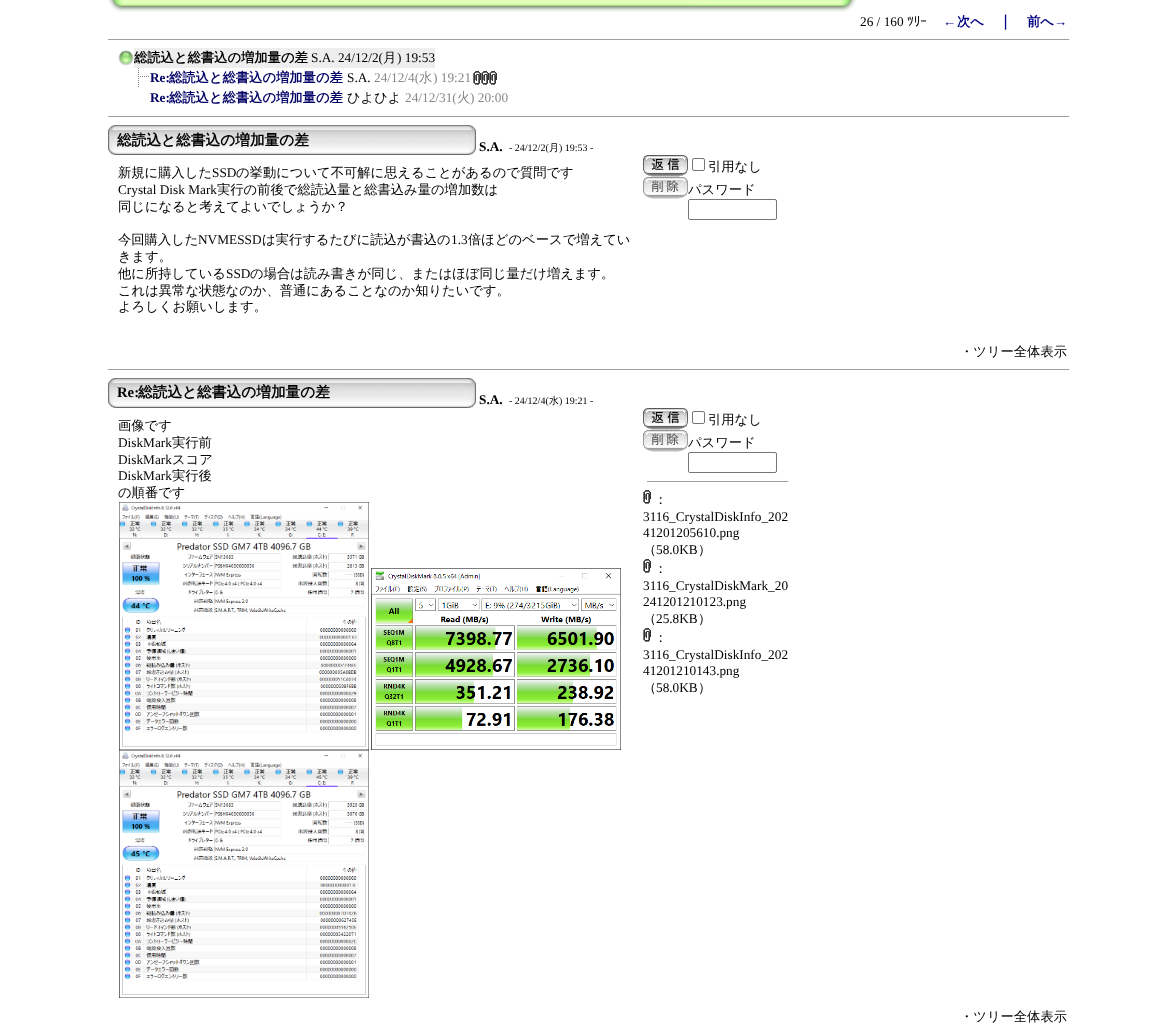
(async () => {
    const canvas = document.querySelector("canvas");
    canvas.width = 1175;
    canvas.height = 1028;
    const context = canvas.getContext("2d");
    context.miterLimit = 4;
    context.fontKerning = "normal";
    function write(s, x, y, font, color) {
        context.font = font;
        context.fillStyle = color;
        context.fillText(s, x, y);
    }
    function block(x, y, w, h, color) {
        context.fillStyle = color;
        context.fillRect(x, y, w, h);
    }
    async function photo(src, x, y, w, h) {
        const img = new Image();
        img.src = src;
        await img.decode();
        context.drawImage(img, x, y, w, h);
    }

    block(0, 0, 1175, 1028, "rgb(255, 255, 255)");
    await photo("media/1.png", 108, 0, 14, 12);
    await photo("media/2.png", 122, 0, 720, 12);
    await photo("media/3.png", 842, 0, 14, 12);
    write("26 / 160", 860, 26, "13.3px Liberation Serif", "rgb(0, 0, 0)");
    write("ﾂﾘｰ", 907, 26, "13.3px IPAPGothic", "rgb(0, 0, 0)");
    write("←", 943, 26, "bold 13.3px Liberation Serif", "rgb(0, 0, 128)");
    write("次へ", 957, 26, "bold 13.3px WenQuanYi Zen Hei", "rgb(0, 0, 128)");
    write("｜", 998, 26, "bold 14.7px WenQuanYi Zen Hei", "rgb(0, 0, 128)");
    write("前へ", 1027, 26, "bold 13.3px WenQuanYi Zen Hei", "rgb(0, 0, 128)");
    write("→", 1054, 26, "bold 13.3px Liberation Serif", "rgb(0, 0, 128)");
    block(108, 39, 962, 1, "rgb(159, 159, 159)");
    block(1069, 39, 1, 1, "rgb(238, 238, 238)");
    await photo("media/4.png", 118, 50, 16, 16);
    block(134, 48, 301, 20, "rgb(238, 238, 238)");
    write("総読込と総書込の増加量の差", 134, 62, "bold 13.3px WenQuanYi Zen Hei", "rgb(0, 0, 0)");
    write("S.A. 24/12/2(", 311, 62, "13.3px Liberation Serif", "rgb(0, 0, 0)");
    write("月", 383, 62, "500 13.3px WenQuanYi Zen Hei", "rgb(0, 0, 0)");
    write(") 19:53", 397, 62, "13.3px Liberation Serif", "rgb(0, 0, 0)");
    await photo("media/5.png", 138, 68, 11, 19);
    write("Re:", 150, 82, "bold 13.3px Liberation Serif", "rgb(0, 0, 102)");
    write("総読込と総書込の増加量の差", 169, 82, "bold 13.3px WenQuanYi Zen Hei", "rgb(0, 0, 102)");
    write("S.A.", 347, 82, "13.3px Liberation Serif", "rgb(0, 0, 0)");
    write("24/12/4(", 374, 82, "13.3px Liberation Serif", "rgb(136, 136, 136)");
    write("水", 419, 82, "500 13.3px WenQuanYi Zen Hei", "rgb(136, 136, 136)");
    write(") 19:21", 433, 82, "13.3px Liberation Serif", "rgb(136, 136, 136)");
    await photo("media/6.png", 473, 71, 8, 14);
    await photo("media/6.png", 481, 71, 8, 14);
    await photo("media/6.png", 489, 71, 8, 14);
    write("Re:", 150, 102, "bold 13.3px Liberation Serif", "rgb(0, 0, 102)");
    write("総読込と総書込の増加量の差", 169, 102, "bold 13.3px WenQuanYi Zen Hei", "rgb(0, 0, 102)");
    write("ひよひよ", 347, 102, "500 13.3px WenQuanYi Zen Hei", "rgb(0, 0, 0)");
    write("24/12/31(", 405, 102, "13.3px Liberation Serif", "rgb(136, 136, 136)");
    write("火", 457, 102, "500 13.3px WenQuanYi Zen Hei", "rgb(136, 136, 136)");
    write(") 20:00", 470, 102, "13.3px Liberation Serif", "rgb(136, 136, 136)");
    block(108, 116, 962, 1, "rgb(159, 159, 159)");
    block(1069, 116, 1, 1, "rgb(238, 238, 238)");
    await photo("media/7.png", 108, 125, 9, 30);
    await photo("media/8.png", 117, 125, 350, 30);
    write("総読込と総書込の増加量の差", 117, 145, "bold 14.7px WenQuanYi Zen Hei", "rgb(0, 0, 0)");
    await photo("media/9.png", 467, 125, 9, 30);
    write("S.A.", 479, 151, "bold 13.3px Liberation Serif", "rgb(0, 0, 0)");
    write("- 24/12/2(", 509, 151, "10px Liberation Serif", "rgb(0, 0, 0)");
    write("月", 549, 151, "500 10px WenQuanYi Zen Hei", "rgb(0, 0, 0)");
    write(") 19:53 -", 559, 151, "10px Liberation Serif", "rgb(0, 0, 0)");
    write("新規に購入した", 118, 177, "500 13.3px WenQuanYi Zen Hei", "rgb(0, 0, 0)");
    write("SSD", 212, 177, "13.3px Liberation Serif", "rgb(0, 0, 0)");
    write("の挙動について不可解に思えることがあるので質問です", 236, 177, "500 13.3px WenQuanYi Zen Hei", "rgb(0, 0, 0)");
    write("Crystal Disk Mark", 118, 194, "13.3px Liberation Serif", "rgb(0, 0, 0)");
    write("実行の前後で総読込量と総書込み量の増加数は", 217, 194, "500 13.3px WenQuanYi Zen Hei", "rgb(0, 0, 0)");
    write("同じになると考えてよいでしょうか？", 118, 211, "500 13.3px WenQuanYi Zen Hei", "rgb(0, 0, 0)");
    write("今回購入した", 118, 244, "500 13.3px WenQuanYi Zen Hei", "rgb(0, 0, 0)");
    write("NVMESSD", 198, 244, "13.3px Liberation Serif", "rgb(0, 0, 0)");
    write("は実行するたびに読込が書込の", 262, 244, "500 13.3px WenQuanYi Zen Hei", "rgb(0, 0, 0)");
    write("1.3", 451, 244, "13.3px Liberation Serif", "rgb(0, 0, 0)");
    write("倍ほどのベースで増えてい", 468, 244, "500 13.3px WenQuanYi Zen Hei", "rgb(0, 0, 0)");
    write("きます。", 118, 261, "500 13.3px WenQuanYi Zen Hei", "rgb(0, 0, 0)");
    write("他に所持している", 118, 278, "500 13.3px WenQuanYi Zen Hei", "rgb(0, 0, 0)");
    write("SSD", 226, 278, "13.3px Liberation Serif", "rgb(0, 0, 0)");
    write("の場合は読み書きが同じ、またはほぼ同じ量だけ増えます。", 250, 278, "500 13.3px WenQuanYi Zen Hei", "rgb(0, 0, 0)");
    write("これは異常な状態なのか、普通にあることなのか知りたいです。", 118, 295, "500 13.3px WenQuanYi Zen Hei", "rgb(0, 0, 0)");
    write("よろしくお願いします。", 118, 311, "500 13.3px WenQuanYi Zen Hei", "rgb(0, 0, 0)");
    await photo("media/10.png", 643, 155, 45, 22);
    context.beginPath();
    context.roundRect(692.5, 158.5, 12, 12, 1.5);
    context.strokeStyle = "rgb(118, 118, 118)";
    context.stroke();
    write("引用なし", 708, 171, "500 13.3px WenQuanYi Zen Hei", "rgb(0, 0, 0)");
    await photo("media/11.png", 643, 177, 45, 22);
    write("パスワード", 688, 194, "500 13.3px WenQuanYi Zen Hei", "rgb(0, 0, 0)");
    context.beginPath();
    context.roundRect(688.5, 199.5, 88, 20, 1.5);
    context.stroke();
    write("・ツリー全体表示", 960, 356, "500 13.3px WenQuanYi Zen Hei", "rgb(0, 0, 0)");
    block(108, 369, 962, 1, "rgb(159, 159, 159)");
    block(1069, 369, 1, 1, "rgb(238, 238, 238)");
    await photo("media/7.png", 108, 378, 9, 30);
    await photo("media/8.png", 117, 378, 350, 30);
    write("Re:", 117, 397, "bold 14.7px Liberation Serif", "rgb(0, 0, 0)");
    write("総読込と総書込の増加量の差", 138, 397, "bold 14.7px WenQuanYi Zen Hei", "rgb(0, 0, 0)");
    await photo("media/9.png", 467, 378, 9, 30);
    write("S.A.", 479, 404, "bold 13.3px Liberation Serif", "rgb(0, 0, 0)");
    write("- 24/12/4(", 509, 404, "10px Liberation Serif", "rgb(0, 0, 0)");
    write("水", 549, 404, "500 10px WenQuanYi Zen Hei", "rgb(0, 0, 0)");
    write(") 19:21 -", 559, 404, "10px Liberation Serif", "rgb(0, 0, 0)");
    write("画像です", 118, 430, "500 13.3px WenQuanYi Zen Hei", "rgb(0, 0, 0)");
    write("DiskMark", 118, 447, "13.3px Liberation Serif", "rgb(0, 0, 0)");
    write("実行前", 172, 447, "500 13.3px WenQuanYi Zen Hei", "rgb(0, 0, 0)");
    write("DiskMark", 118, 464, "13.3px Liberation Serif", "rgb(0, 0, 0)");
    write("スコア", 172, 464, "500 13.3px WenQuanYi Zen Hei", "rgb(0, 0, 0)");
    write("DiskMark", 118, 480, "13.3px Liberation Serif", "rgb(0, 0, 0)");
    write("実行後", 172, 480, "500 13.3px WenQuanYi Zen Hei", "rgb(0, 0, 0)");
    write("の順番です", 118, 497, "500 13.3px WenQuanYi Zen Hei", "rgb(0, 0, 0)");
    await photo("media/12.png", 119, 502, 250, 248);
    await photo("media/13.png", 371, 568, 250, 182);
    await photo("media/14.png", 119, 750, 250, 248);
    await photo("media/10.png", 643, 408, 45, 22);
    context.beginPath();
    context.roundRect(692.5, 411.5, 12, 12, 1.5);
    context.stroke();
    write("引用なし", 708, 424, "500 13.3px WenQuanYi Zen Hei", "rgb(0, 0, 0)");
    await photo("media/11.png", 643, 430, 45, 22);
    write("パスワード", 688, 447, "500 13.3px WenQuanYi Zen Hei", "rgb(0, 0, 0)");
    context.beginPath();
    context.roundRect(688.5, 452.5, 88, 20, 1.5);
    context.stroke();
    block(647, 481, 142, 1, "rgb(159, 159, 159)");
    block(788, 481, 1, 1, "rgb(238, 238, 238)");
    await photo("media/6.png", 643, 490, 8, 14);
    write("：", 654, 504, "500 13.3px WenQuanYi Zen Hei", "rgb(0, 0, 0)");
    write("3116_CrystalDiskInfo_202", 643, 521, "13.3px Liberation Serif", "rgb(0, 0, 0)");
    write("41201205610.png", 643, 537, "13.3px Liberation Serif", "rgb(0, 0, 0)");
    write("（", 643, 554, "500 13.3px WenQuanYi Zen Hei", "rgb(0, 0, 0)");
    write("58.0KB", 656, 554, "13.3px Liberation Serif", "rgb(0, 0, 0)");
    write("）", 698, 554, "500 13.3px WenQuanYi Zen Hei", "rgb(0, 0, 0)");
    await photo("media/6.png", 643, 559, 8, 14);
    write("：", 654, 573, "500 13.3px WenQuanYi Zen Hei", "rgb(0, 0, 0)");
    write("3116_CrystalDiskMark_20", 643, 590, "13.3px Liberation Serif", "rgb(0, 0, 0)");
    write("241201210123.png", 643, 606, "13.3px Liberation Serif", "rgb(0, 0, 0)");
    write("（", 643, 623, "500 13.3px WenQuanYi Zen Hei", "rgb(0, 0, 0)");
    write("25.8KB", 656, 623, "13.3px Liberation Serif", "rgb(0, 0, 0)");
    write("）", 698, 623, "500 13.3px WenQuanYi Zen Hei", "rgb(0, 0, 0)");
    await photo("media/6.png", 643, 628, 8, 14);
    write("：", 654, 642, "500 13.3px WenQuanYi Zen Hei", "rgb(0, 0, 0)");
    write("3116_CrystalDiskInfo_202", 643, 659, "13.3px Liberation Serif", "rgb(0, 0, 0)");
    write("41201210143.png", 643, 675, "13.3px Liberation Serif", "rgb(0, 0, 0)");
    write("（", 643, 692, "500 13.3px WenQuanYi Zen Hei", "rgb(0, 0, 0)");
    write("58.0KB", 656, 692, "13.3px Liberation Serif", "rgb(0, 0, 0)");
    write("）", 698, 692, "500 13.3px WenQuanYi Zen Hei", "rgb(0, 0, 0)");
    write("・ツリー全体表示", 960, 1021, "500 13.3px WenQuanYi Zen Hei", "rgb(0, 0, 0)");
})();
